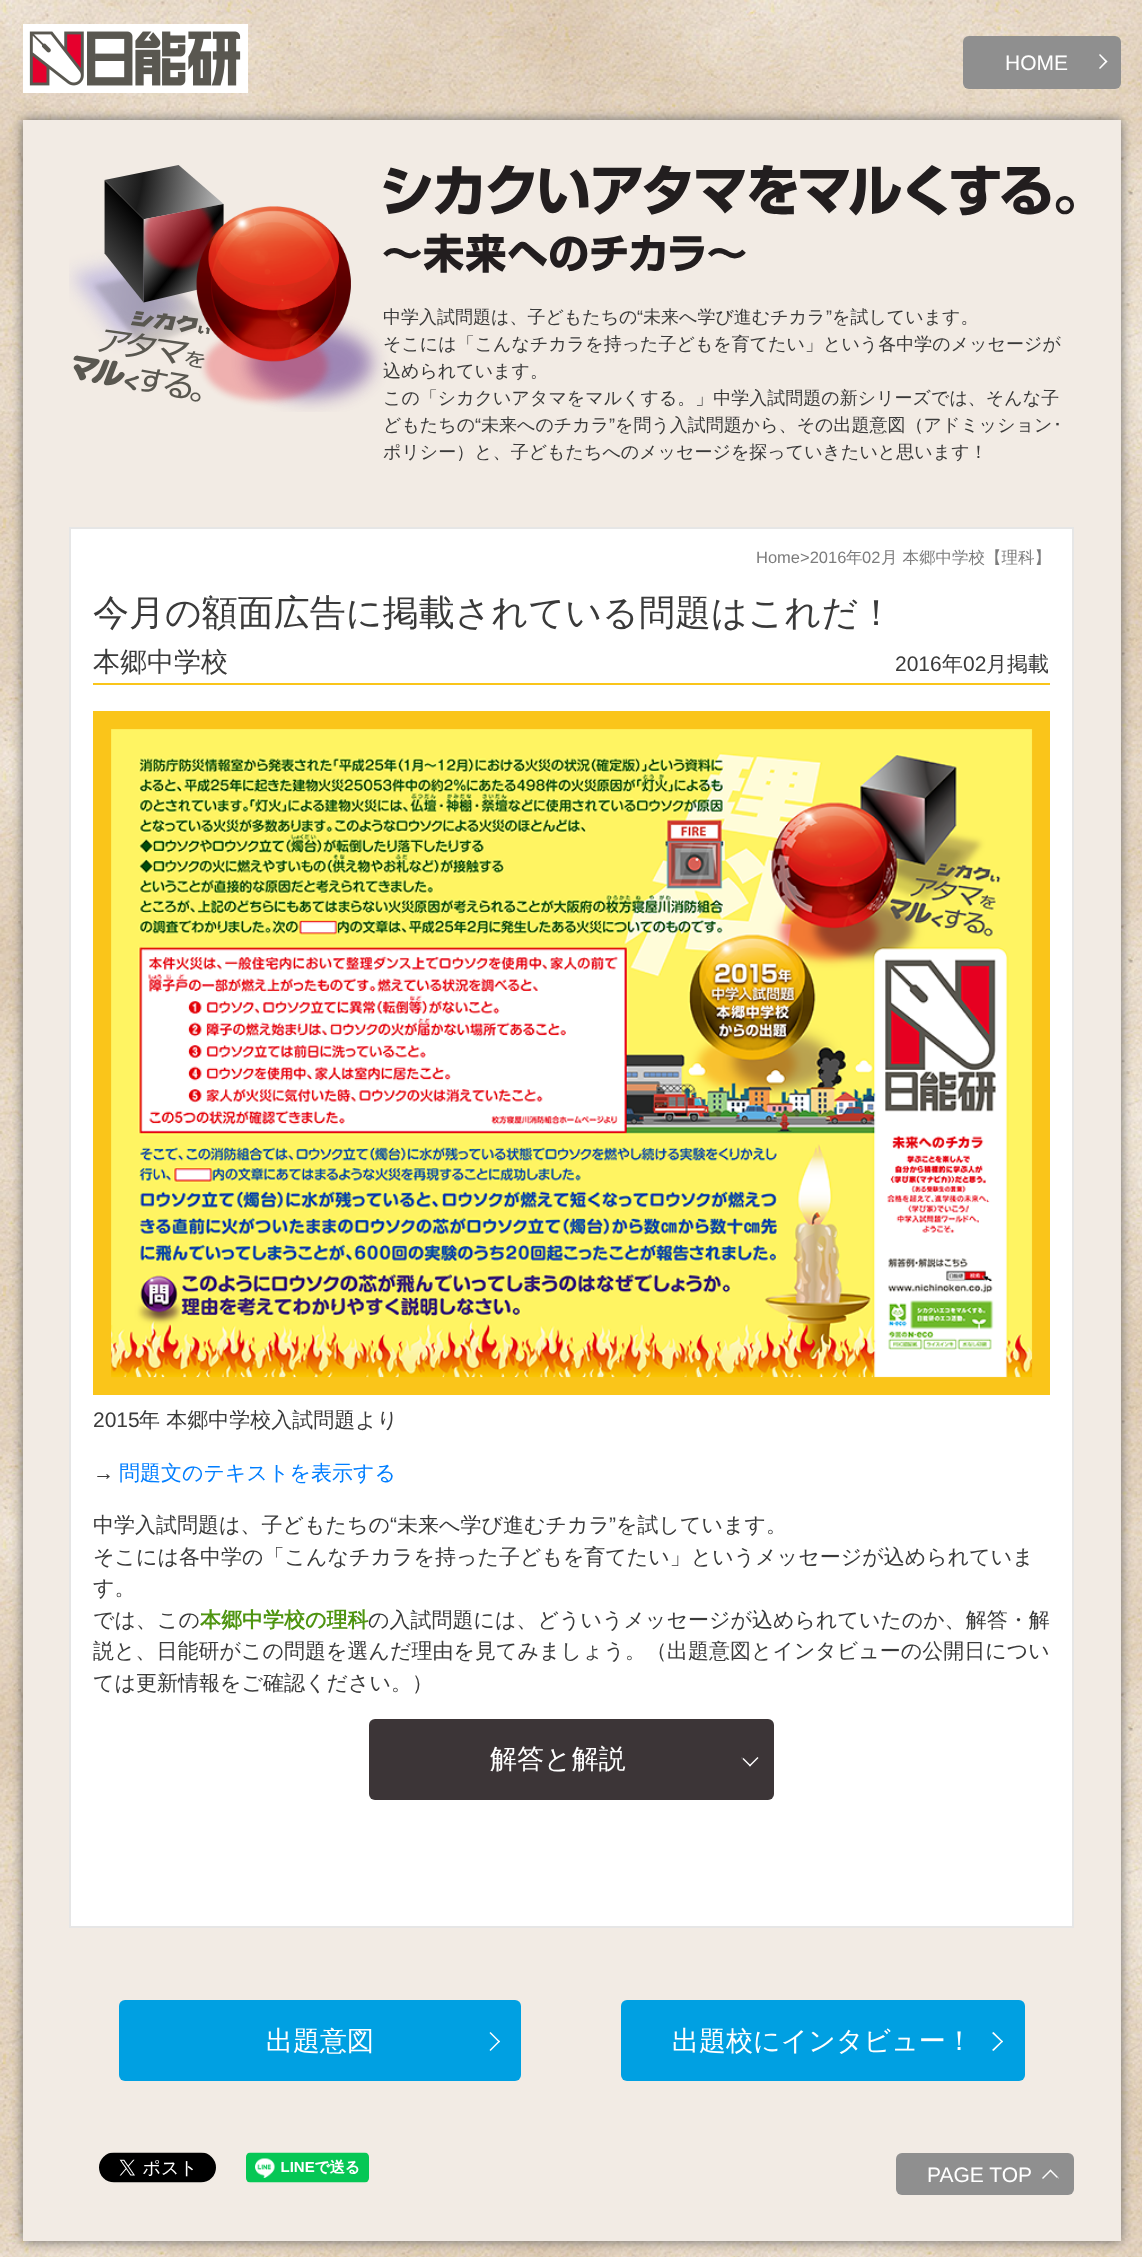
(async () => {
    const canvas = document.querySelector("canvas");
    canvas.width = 1142;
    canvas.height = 2257;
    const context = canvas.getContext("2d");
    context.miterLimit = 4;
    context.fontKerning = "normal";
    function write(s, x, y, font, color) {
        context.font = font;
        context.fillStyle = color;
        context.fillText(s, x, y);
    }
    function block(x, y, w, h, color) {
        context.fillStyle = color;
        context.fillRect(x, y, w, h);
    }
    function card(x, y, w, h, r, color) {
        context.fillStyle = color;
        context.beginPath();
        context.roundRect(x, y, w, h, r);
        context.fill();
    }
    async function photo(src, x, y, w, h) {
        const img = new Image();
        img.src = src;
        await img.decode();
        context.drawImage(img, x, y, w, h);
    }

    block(0, 0, 1142, 2257, "rgb(255, 255, 255)");
    await photo("media/1.png", 0, 0, 1142, 2257);
    await photo("media/2.png", 23, 24, 225, 69);
    card(963, 36, 158, 53, 6, "rgb(143, 143, 143)");
    write("HOME", 1005, 70, "21px Liberation Sans", "rgb(255, 255, 255)");
    context.beginPath();
    context.moveTo(1100, 54);
    context.lineTo(1107.5, 61.5);
    context.lineTo(1106, 62.5);
    context.lineTo(1099, 55);
    context.closePath();
    context.fill();
    context.beginPath();
    context.moveTo(1106, 60.5);
    context.lineTo(1107.5, 61.5);
    context.lineTo(1100, 69);
    context.lineTo(1099, 68);
    context.closePath();
    context.fill();
    context.fillStyle = "rgb(102, 102, 102)";
    context.filter = "blur(6px)";
    context.beginPath();
    context.rect(23, 120, 1098, 2121);
    context.fill();
    context.filter = "none";
    block(23, 120, 1098, 2121, "rgb(242, 235, 228)");
    write("中学入試問題は、子どもたちの", 383, 323, "500 18px WenQuanYi Zen Hei", "rgb(58, 58, 58)");
    write("“", 637, 323, "18px Liberation Sans", "rgb(58, 58, 58)");
    write("未来へ学び進むチカラ", 643, 323, "500 18px WenQuanYi Zen Hei", "rgb(58, 58, 58)");
    write("”", 826, 323, "18px Liberation Sans", "rgb(58, 58, 58)");
    write("を試しています。", 832, 323, "500 18px WenQuanYi Zen Hei", "rgb(58, 58, 58)");
    write("そこには「こんなチカラを持った子どもを育てたい」という各中学のメッセージが", 383, 350, "500 18px WenQuanYi Zen Hei", "rgb(58, 58, 58)");
    write("込められています。", 383, 377, "500 18px WenQuanYi Zen Hei", "rgb(58, 58, 58)");
    write("この「シカクいアタマをマルくする。」中学入試問題の新シリーズでは、そんな子", 383, 404, "500 18px WenQuanYi Zen Hei", "rgb(58, 58, 58)");
    await photo("media/3.png", 69, 165, 1005, 247);
    write("どもたちの", 383, 431, "500 18px WenQuanYi Zen Hei", "rgb(58, 58, 58)");
    write("“", 475, 431, "18px Liberation Sans", "rgb(58, 58, 58)");
    write("未来へのチカラ", 481, 431, "500 18px WenQuanYi Zen Hei", "rgb(58, 58, 58)");
    write("”", 609, 431, "18px Liberation Sans", "rgb(58, 58, 58)");
    write("を問う入試問題から、その出題意図（アドミッション", 615, 431, "500 18px WenQuanYi Zen Hei", "rgb(58, 58, 58)");
    write("･", 1053, 431, "18px IPAPGothic", "rgb(58, 58, 58)");
    write("ポリシー）と、子どもたちへのメッセージを探っていきたいと思います！", 383, 458, "500 18px WenQuanYi Zen Hei", "rgb(58, 58, 58)");
    context.fillStyle = "rgb(255, 255, 255)";
    context.beginPath();
    context.rect(70, 528, 1003, 1399);
    context.fill();
    context.strokeStyle = "rgb(230, 230, 230)";
    context.lineWidth = 2;
    context.stroke();
    write("Home>2016", 756, 563, "16.5px Liberation Sans", "rgb(124, 124, 124)");
    write("年", 846, 563, "500 16.5px WenQuanYi Zen Hei", "rgb(124, 124, 124)");
    write("02", 862, 563, "16.5px Liberation Sans", "rgb(124, 124, 124)");
    write("月 本郷中学校【理科】", 881, 563, "500 16.5px WenQuanYi Zen Hei", "rgb(124, 124, 124)");
    write("今月の額面広告に掲載されている問題はこれだ！", 93, 625, "500 36px WenQuanYi Zen Hei", "rgb(58, 58, 58)");
    block(93, 683, 957, 2, "rgb(250, 197, 26)");
    write("本郷中学校", 93, 671, "500 27px WenQuanYi Zen Hei", "rgb(58, 58, 58)");
    write("2016", 895, 671, "21px Liberation Sans", "rgb(58, 58, 58)");
    write("年", 942, 671, "500 21px WenQuanYi Zen Hei", "rgb(58, 58, 58)");
    write("02", 963, 671, "21px Liberation Sans", "rgb(58, 58, 58)");
    write("月掲載", 986, 671, "500 21px WenQuanYi Zen Hei", "rgb(58, 58, 58)");
    await photo("media/4.png", 93, 711, 957, 684);
    write("2015", 93, 1427, "21px Liberation Sans", "rgb(58, 58, 58)");
    write("年 本郷中学校入試問題より", 139, 1427, "500 21px WenQuanYi Zen Hei", "rgb(58, 58, 58)");
    write("→", 93, 1480, "21px Liberation Sans", "rgb(58, 58, 58)");
    write("問題文のテキストを表示する", 119, 1480, "500 21px WenQuanYi Zen Hei", "rgb(0, 126, 255)");
    write("中学入試問題は、子どもたちの", 93, 1532, "500 21px WenQuanYi Zen Hei", "rgb(58, 58, 58)");
    write("“", 390, 1532, "21px Liberation Sans", "rgb(58, 58, 58)");
    write("未来へ学び進むチカラ", 397, 1532, "500 21px WenQuanYi Zen Hei", "rgb(58, 58, 58)");
    write("”", 609, 1532, "21px Liberation Sans", "rgb(58, 58, 58)");
    write("を試しています。", 616, 1532, "500 21px WenQuanYi Zen Hei", "rgb(58, 58, 58)");
    write("そこには各中学の「こんなチカラを持った子どもを育てたい」というメッセージが込められていま", 93, 1564, "500 21px WenQuanYi Zen Hei", "rgb(58, 58, 58)");
    write("す。", 93, 1595, "500 21px WenQuanYi Zen Hei", "rgb(58, 58, 58)");
    write("では、この", 93, 1627, "500 21px WenQuanYi Zen Hei", "rgb(58, 58, 58)");
    write("本郷中学校の理科", 200, 1627, "bold 21px WenQuanYi Zen Hei", "rgb(78, 148, 16)");
    write("の入試問題には、どういうメッセージが込められていたのか、解答・解", 368, 1627, "500 21px WenQuanYi Zen Hei", "rgb(58, 58, 58)");
    write("説と、日能研がこの問題を選んだ理由を見てみましょう。（出題意図とインタビューの公開日につい", 93, 1658, "500 21px WenQuanYi Zen Hei", "rgb(58, 58, 58)");
    write("ては更新情報をご確認ください。）", 93, 1690, "500 21px WenQuanYi Zen Hei", "rgb(58, 58, 58)");
    card(369, 1719, 405, 81, 6, "rgb(60, 53, 55)");
    write("解答と解説", 490, 1768, "500 27px WenQuanYi Zen Hei", "rgb(255, 255, 255)");
    context.beginPath();
    context.moveTo(750, 1766.5);
    context.lineTo(741.5, 1758);
    context.lineTo(742.5, 1757);
    context.lineTo(751, 1765.5);
    context.closePath();
    context.fill();
    context.fillStyle = "rgb(60, 53, 55)";
    context.beginPath();
    context.moveTo(742.5, 1759);
    context.lineTo(741.5, 1758);
    context.lineTo(750, 1749.5);
    context.lineTo(751, 1750.5);
    context.closePath();
    context.fill();
    context.fillStyle = "rgb(255, 255, 255)";
    context.beginPath();
    context.moveTo(750, 1766.5);
    context.lineTo(749, 1765.5);
    context.lineTo(757.5, 1757);
    context.lineTo(758.5, 1758);
    context.closePath();
    context.fill();
    card(119, 2000, 402, 81, 6, "rgb(0, 160, 226)");
    write("出題意図", 266, 2050, "500 27px WenQuanYi Zen Hei", "rgb(255, 255, 255)");
    context.beginPath();
    context.moveTo(490.5, 2032);
    context.lineTo(500, 2041.5);
    context.lineTo(499, 2042.5);
    context.lineTo(489.5, 2033);
    context.closePath();
    context.fill();
    context.beginPath();
    context.moveTo(499, 2040.5);
    context.lineTo(500, 2041.5);
    context.lineTo(490.5, 2051);
    context.lineTo(489.5, 2050);
    context.closePath();
    context.fill();
    card(621, 2000, 404, 81, 6, "rgb(0, 160, 226)");
    write("出題校にインタビュー！", 672, 2050, "500 27px WenQuanYi Zen Hei", "rgb(255, 255, 255)");
    context.beginPath();
    context.moveTo(993.5, 2032);
    context.lineTo(1003, 2041.5);
    context.lineTo(1002, 2042.5);
    context.lineTo(992, 2033);
    context.closePath();
    context.fill();
    context.beginPath();
    context.moveTo(1002, 2040.5);
    context.lineTo(1003, 2041.5);
    context.lineTo(993.5, 2051);
    context.lineTo(992, 2050);
    context.closePath();
    context.fill();
    await photo("media/5.png", 99, 2152, 117, 31);
    await photo("media/6.png", 246, 2152, 123, 31);
    card(896, 2153, 178, 42, 6, "rgb(143, 143, 143)");
    write("PAGE TOP", 927, 2182, "21px Liberation Sans", "rgb(255, 255, 255)");
    context.beginPath();
    context.moveTo(1050.5, 2169.5);
    context.lineTo(1059, 2178);
    context.lineTo(1058, 2179);
    context.lineTo(1049.5, 2170.5);
    context.closePath();
    context.fill();
    context.fillStyle = "rgb(143, 143, 143)";
    context.beginPath();
    context.moveTo(1058, 2177);
    context.lineTo(1059, 2178);
    context.lineTo(1050.5, 2186.5);
    context.lineTo(1049.5, 2185.5);
    context.closePath();
    context.fill();
    context.fillStyle = "rgb(255, 255, 255)";
    context.beginPath();
    context.moveTo(1050.5, 2169.5);
    context.lineTo(1051.5, 2170.5);
    context.lineTo(1043, 2179);
    context.lineTo(1042, 2178);
    context.closePath();
    context.fill();
})();
